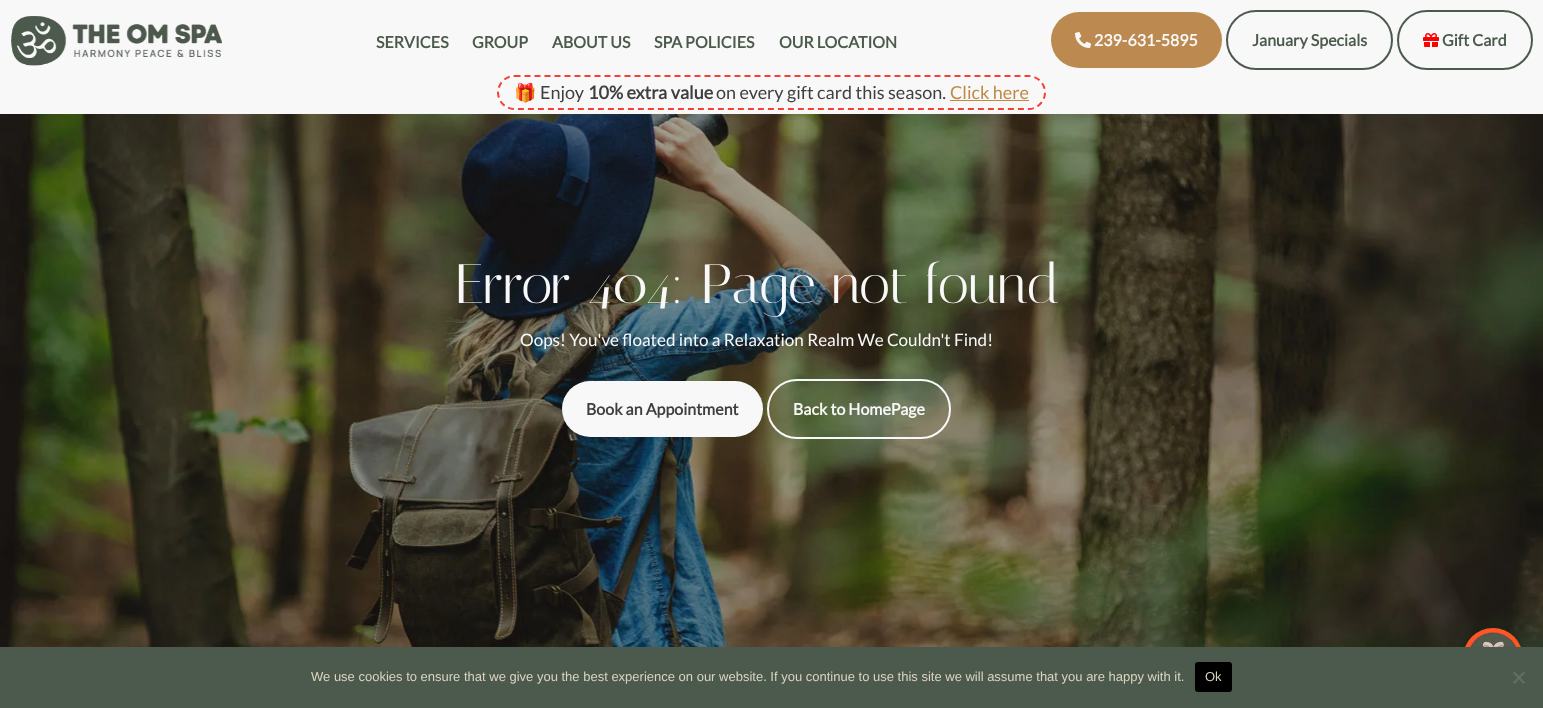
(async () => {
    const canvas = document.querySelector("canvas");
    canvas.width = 1543;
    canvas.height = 708;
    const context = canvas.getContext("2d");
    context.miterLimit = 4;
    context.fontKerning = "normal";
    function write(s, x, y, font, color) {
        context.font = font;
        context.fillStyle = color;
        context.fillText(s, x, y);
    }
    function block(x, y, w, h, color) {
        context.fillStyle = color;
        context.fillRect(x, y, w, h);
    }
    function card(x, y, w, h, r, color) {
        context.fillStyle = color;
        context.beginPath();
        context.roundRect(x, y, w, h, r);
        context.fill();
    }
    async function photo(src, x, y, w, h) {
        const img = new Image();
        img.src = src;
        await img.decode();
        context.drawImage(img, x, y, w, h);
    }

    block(0, 0, 1543, 708, "rgb(255, 255, 255)");
    block(0, 0, 1543, 114, "rgb(248, 248, 248)");
    await photo("media/1.png", 11, 16, 211, 50);
    write("SERVICES", 376, 48, "bold 16px Lato", "rgb(76, 90, 76)");
    write("GROUP", 472, 48, "bold 16px Lato", "rgb(76, 90, 76)");
    write("ABOUT US", 552, 48, "bold 16px Lato", "rgb(76, 90, 76)");
    write("SPA POLICIES", 654, 48, "bold 16px Lato", "rgb(76, 90, 76)");
    write("OUR LOCATION", 779, 48, "bold 16px Lato", "rgb(76, 90, 76)");
    card(1051, 12, 171, 56, 28, "rgb(188, 138, 80)");
    await photo("media/2.png", 1075, 32, 16, 16);
    write("239-631-5895", 1094, 46, "bold 16px Lato", "rgb(248, 248, 248)");
    context.beginPath();
    context.roundRect(1227, 11, 165, 58, 29);
    context.strokeStyle = "rgb(76, 90, 77)";
    context.lineWidth = 2;
    context.stroke();
    write("January Specials", 1252, 46, "bold 16px Lato", "rgb(76, 90, 76)");
    context.beginPath();
    context.roundRect(1398, 11, 134, 58, 29);
    context.stroke();
    await photo("media/3.png", 1423, 33, 16, 14);
    write("Gift Card", 1442, 46, "bold 16px Lato", "rgb(76, 90, 76)");
    context.beginPath();
    context.moveTo(514.5, 76);
    context.lineTo(1028.5, 76);
    context.bezierCurveTo(1037.5, 76, 1045, 83.5, 1045, 92.5);
    context.bezierCurveTo(1045, 101.5, 1037.5, 109, 1028.5, 109);
    context.lineTo(514.5, 109);
    context.bezierCurveTo(505.5, 109, 498, 101.5, 498, 92.5);
    context.bezierCurveTo(498, 83.5, 505.5, 76, 514.5, 76);
    context.closePath();
    context.strokeStyle = "rgb(243, 66, 53)";
    context.setLineDash([6, 4]);
    context.stroke();
    write("🎁", 514, 99, "18px Noto Color Emoji", "rgb(63, 63, 64)");
    write("Enjoy", 540, 99, "18px Lato", "rgb(63, 63, 64)");
    write("10% extra value", 588, 99, "bold 18px Lato", "rgb(63, 63, 64)");
    write("on every gift card this season.", 716, 99, "18px Lato", "rgb(63, 63, 64)");
    write("Click here", 950, 99, "18px Lato", "rgb(188, 138, 68)");
    block(950, 100, 79, 1, "rgb(188, 138, 68)");
    await photo("media/4.png", 0, 114, 1543, 533);
    write("Error 404: Page not found", 455, 303, "55.5px Italiana", "rgb(248, 248, 248)");
    write("Oops! You've floated into a Relaxation Realm We Couldn't Find!", 520, 346, "17.1px Lato", "rgb(248, 248, 248)");
    card(562, 381, 201, 56, 28, "rgb(248, 248, 248)");
    write("Book an Appointment", 586, 415, "bold 16px Lato", "rgb(63, 63, 64)");
    context.beginPath();
    context.roundRect(768, 380, 182, 58, 29);
    context.strokeStyle = "rgb(248, 248, 248)";
    context.setLineDash([]);
    context.stroke();
    write("Back to HomePage", 793, 415, "bold 16px Lato", "rgb(248, 248, 248)");
    context.fillStyle = "rgba(0, 0, 0, 0.3)";
    context.filter = "blur(4px)";
    context.beginPath();
    context.roundRect(1463, 632, 60, 60, 30);
    context.fill();
    context.filter = "none";
    context.fillStyle = "rgb(255, 87, 34)";
    context.beginPath();
    context.arc(1493, 658, 30, 0, Math.PI * 2);
    context.fill();
    await photo("media/5.png", 1469, 632, 48, 15);
    block(0, 647, 1543, 61, "rgb(76, 90, 77)");
    write("We use cookies to ensure that we give you the best experience on our website. If you continue to use this site we will assume that you are happy with it.", 311, 681, "13px Liberation Sans", "rgb(219, 212, 193)");
    card(1195, 662, 37, 30, 3, "rgb(0, 0, 0)");
    write("Ok", 1205, 681, "13px Liberation Sans", "rgb(219, 212, 193)");
    context.fillStyle = "rgb(102, 109, 103)";
    context.beginPath();
    context.moveTo(1523.5, 671.5);
    context.lineTo(1525, 673);
    context.lineTo(1514.5, 684);
    context.lineTo(1513, 682.5);
    context.closePath();
    context.fill();
    context.beginPath();
    context.moveTo(1513, 673);
    context.lineTo(1514.5, 671.5);
    context.lineTo(1525, 682.5);
    context.lineTo(1523.5, 684);
    context.closePath();
    context.fill();
})();
